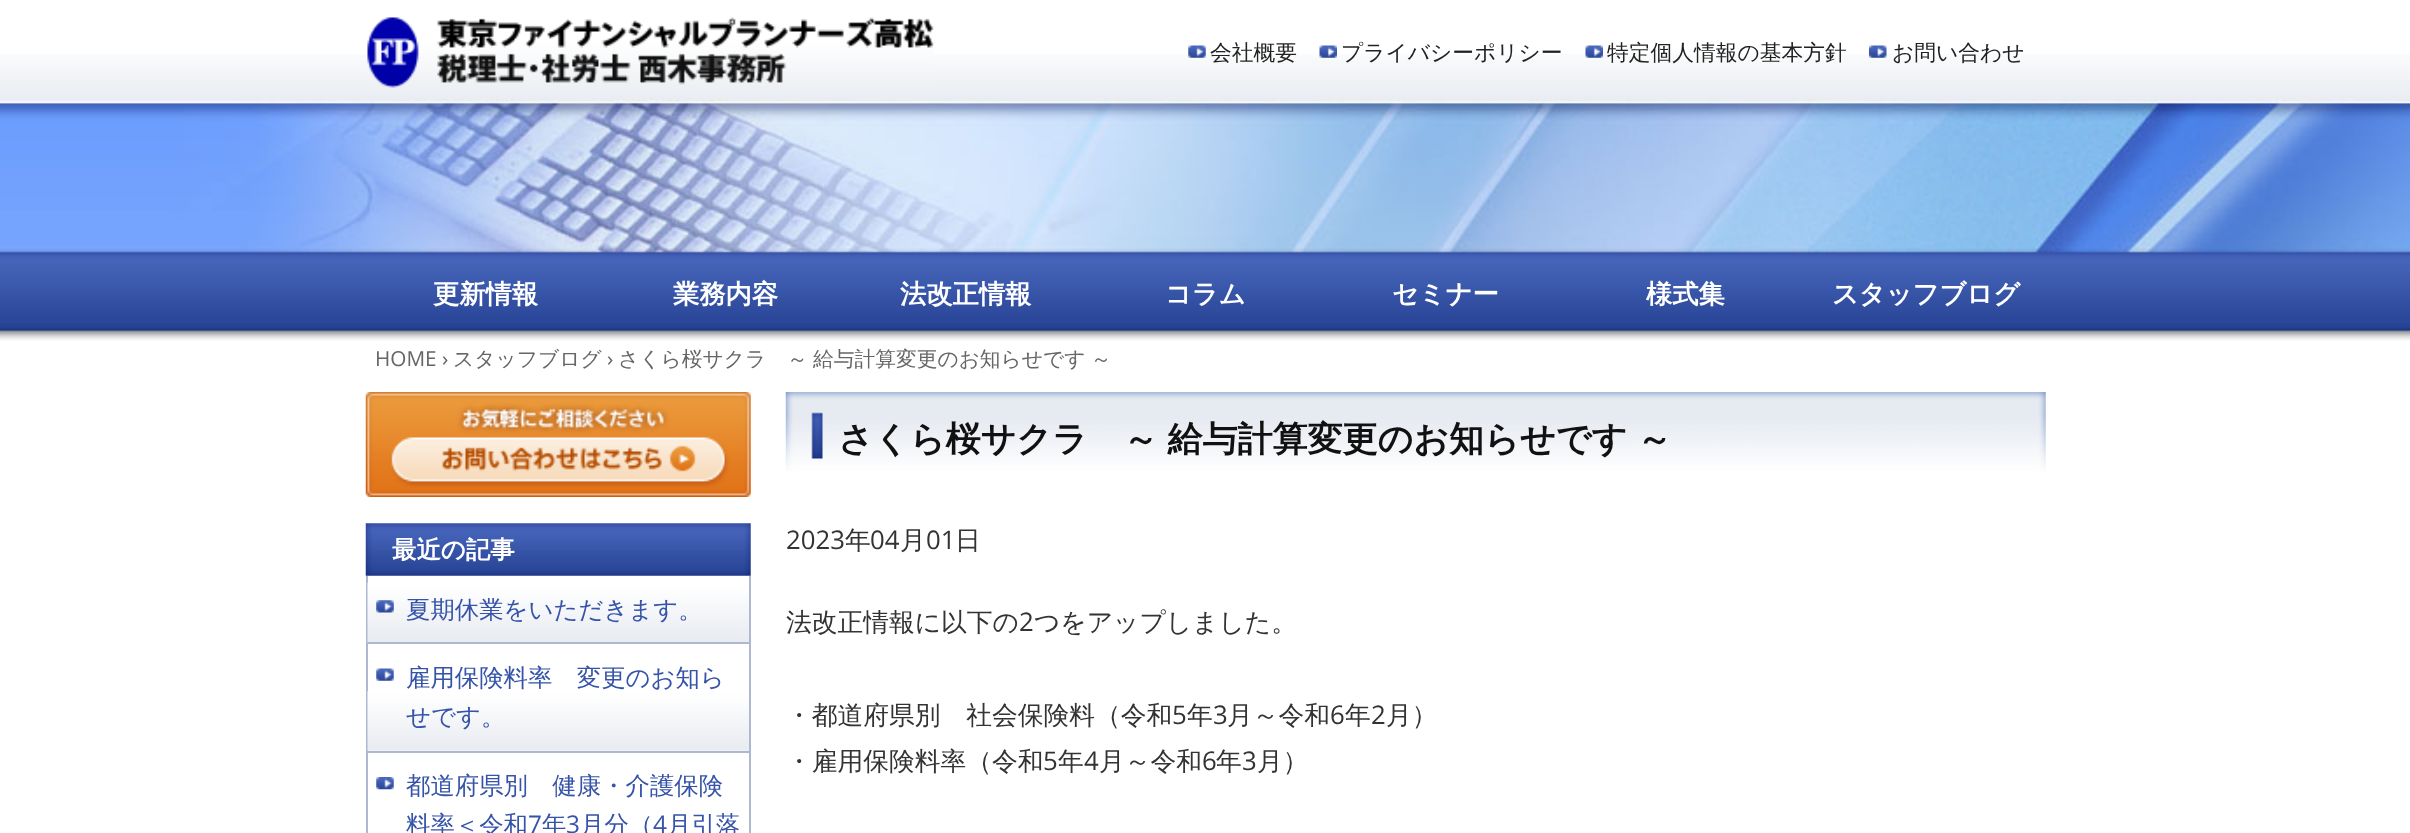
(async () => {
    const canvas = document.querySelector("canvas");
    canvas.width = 2410;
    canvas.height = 833;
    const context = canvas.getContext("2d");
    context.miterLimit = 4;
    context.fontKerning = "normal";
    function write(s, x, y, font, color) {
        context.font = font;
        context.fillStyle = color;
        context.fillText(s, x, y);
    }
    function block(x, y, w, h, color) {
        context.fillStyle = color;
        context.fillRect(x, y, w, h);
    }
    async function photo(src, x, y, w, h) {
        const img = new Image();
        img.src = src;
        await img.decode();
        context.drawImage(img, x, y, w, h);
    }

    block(0, 0, 2410, 833, "rgb(255, 255, 255)");
    await photo("media/1.png", 0, 54, 2410, 287);
    await photo("media/2.png", 0, 98, 2410, 236);
    await photo("media/3.png", 367, 17, 567, 71);
    await photo("media/4.png", 1188, 45, 18, 13);
    write("会社概要", 1210, 60, "500 21.75px WenQuanYi Zen Hei", "rgb(34, 34, 34)");
    await photo("media/5.png", 1319, 45, 18, 13);
    write("プライバシーポリシー", 1341, 60, "500 21.75px WenQuanYi Zen Hei", "rgb(34, 34, 34)");
    await photo("media/6.png", 1585, 45, 18, 13);
    write("特定個人情報の基本方針", 1607, 60, "500 21.75px WenQuanYi Zen Hei", "rgb(34, 34, 34)");
    await photo("media/7.png", 1869, 45, 18, 13);
    write("お問い合わせ", 1892, 60, "500 21.75px WenQuanYi Zen Hei", "rgb(34, 34, 34)");
    write("更新情報", 433, 303, "bold 26.25px WenQuanYi Zen Hei", "rgb(255, 255, 255)");
    write("業務内容", 673, 303, "bold 26.25px WenQuanYi Zen Hei", "rgb(255, 255, 255)");
    write("法改正情報", 900, 303, "bold 26.25px WenQuanYi Zen Hei", "rgb(255, 255, 255)");
    write("コラム", 1165, 303, "bold 26.25px WenQuanYi Zen Hei", "rgb(255, 255, 255)");
    write("セミナー", 1392, 303, "bold 26.25px WenQuanYi Zen Hei", "rgb(255, 255, 255)");
    write("様式集", 1646, 303, "bold 26.25px WenQuanYi Zen Hei", "rgb(255, 255, 255)");
    write("スタッフブログ", 1832, 303, "bold 26.25px WenQuanYi Zen Hei", "rgb(255, 255, 255)");
    write("HOME ›", 375, 366, "20.75px Open Sans", "rgb(102, 102, 102)");
    write("スタッフブログ", 453, 366, "500 20.75px WenQuanYi Zen Hei", "rgb(102, 102, 102)");
    write("›", 607, 366, "20.75px Open Sans", "rgb(102, 102, 102)");
    context.wordSpacing = "-1px";
    write("さくら桜サクラ　～ 給与計算変更のお知らせです ～", 618, 366, "500 20.75px WenQuanYi Zen Hei", "rgb(102, 102, 102)");
    await photo("media/8.png", 365, 392, 386, 105);
    await photo("media/9.png", 365, 523, 386, 53);
    context.wordSpacing = "0px";
    write("最近の記事", 392, 558, "bold 24.4px WenQuanYi Zen Hei", "rgb(255, 255, 255)");
    block(749, 576, 2, 257, "rgb(175, 184, 209)");
    block(366, 576, 2, 257, "rgb(175, 184, 209)");
    await photo("media/10.png", 367, 582, 382, 61);
    block(368, 642, 381, 2, "rgb(175, 184, 209)");
    await photo("media/11.png", 376, 600, 18, 13);
    write("夏期休業をいただきます。", 406, 618, "500 24.4px WenQuanYi Zen Hei", "rgb(53, 83, 168)");
    await photo("media/12.png", 367, 691, 382, 60);
    block(368, 751, 381, 2, "rgb(175, 184, 209)");
    await photo("media/13.png", 376, 668, 18, 13);
    write("雇用保険料率　変更のお知ら", 406, 686, "500 24.4px WenQuanYi Zen Hei", "rgb(53, 83, 168)");
    write("せです。", 406, 725, "500 24.4px WenQuanYi Zen Hei", "rgb(53, 83, 168)");
    await photo("media/14.png", 376, 777, 18, 13);
    write("都道府県別　健康・介護保険", 406, 794, "500 24.4px WenQuanYi Zen Hei", "rgb(53, 83, 168)");
    write("料率＜令和", 406, 833, "500 24.4px WenQuanYi Zen Hei", "rgb(53, 83, 168)");
    write("7", 528, 833, "24.4px Open Sans", "rgb(53, 83, 168)");
    write("年", 542, 833, "500 24.4px WenQuanYi Zen Hei", "rgb(53, 83, 168)");
    write("3", 566, 833, "24.4px Open Sans", "rgb(53, 83, 168)");
    write("月分（", 580, 833, "500 24.4px WenQuanYi Zen Hei", "rgb(53, 83, 168)");
    write("4", 653, 833, "24.4px Open Sans", "rgb(53, 83, 168)");
    write("月引落", 667, 833, "500 24.4px WenQuanYi Zen Hei", "rgb(53, 83, 168)");
    await photo("media/15.png", 785, 392, 1261, 79);
    context.wordSpacing = "-1px";
    write("さくら桜サクラ　～ 給与計算変更のお知らせです ～", 838, 451, "bold 35px WenQuanYi Zen Hei", "rgb(17, 17, 17)");
    context.wordSpacing = "0px";
    write("2023", 786, 549, "25.75px Open Sans", "rgb(51, 51, 51)");
    write("年", 845, 549, "500 25.75px WenQuanYi Zen Hei", "rgb(51, 51, 51)");
    write("04", 870, 549, "25.75px Open Sans", "rgb(51, 51, 51)");
    write("月", 900, 549, "500 25.75px WenQuanYi Zen Hei", "rgb(51, 51, 51)");
    write("01", 926, 549, "25.75px Open Sans", "rgb(51, 51, 51)");
    write("日", 955, 549, "500 25.75px WenQuanYi Zen Hei", "rgb(51, 51, 51)");
    write("法改正情報に以下の", 786, 631, "500 25.75px WenQuanYi Zen Hei", "rgb(51, 51, 51)");
    write("2", 1019, 631, "25.75px Open Sans", "rgb(51, 51, 51)");
    write("つをアップしました。", 1034, 631, "500 25.75px WenQuanYi Zen Hei", "rgb(51, 51, 51)");
    write("・都道府県別　社会保険料（令和", 786, 724, "500 25.75px WenQuanYi Zen Hei", "rgb(51, 51, 51)");
    write("5", 1172, 724, "25.75px Open Sans", "rgb(51, 51, 51)");
    write("年", 1187, 724, "500 25.75px WenQuanYi Zen Hei", "rgb(51, 51, 51)");
    write("3", 1213, 724, "25.75px Open Sans", "rgb(51, 51, 51)");
    write("月～令和", 1227, 724, "500 25.75px WenQuanYi Zen Hei", "rgb(51, 51, 51)");
    write("6", 1330, 724, "25.75px Open Sans", "rgb(51, 51, 51)");
    write("年", 1345, 724, "500 25.75px WenQuanYi Zen Hei", "rgb(51, 51, 51)");
    write("2", 1371, 724, "25.75px Open Sans", "rgb(51, 51, 51)");
    write("月）", 1386, 724, "500 25.75px WenQuanYi Zen Hei", "rgb(51, 51, 51)");
    write("・雇用保険料率（令和", 786, 770, "500 25.75px WenQuanYi Zen Hei", "rgb(51, 51, 51)");
    write("5", 1043, 770, "25.75px Open Sans", "rgb(51, 51, 51)");
    write("年", 1058, 770, "500 25.75px WenQuanYi Zen Hei", "rgb(51, 51, 51)");
    write("4", 1084, 770, "25.75px Open Sans", "rgb(51, 51, 51)");
    write("月～令和", 1099, 770, "500 25.75px WenQuanYi Zen Hei", "rgb(51, 51, 51)");
    write("6", 1202, 770, "25.75px Open Sans", "rgb(51, 51, 51)");
    write("年", 1216, 770, "500 25.75px WenQuanYi Zen Hei", "rgb(51, 51, 51)");
    write("3", 1242, 770, "25.75px Open Sans", "rgb(51, 51, 51)");
    write("月）", 1257, 770, "500 25.75px WenQuanYi Zen Hei", "rgb(51, 51, 51)");
})();
